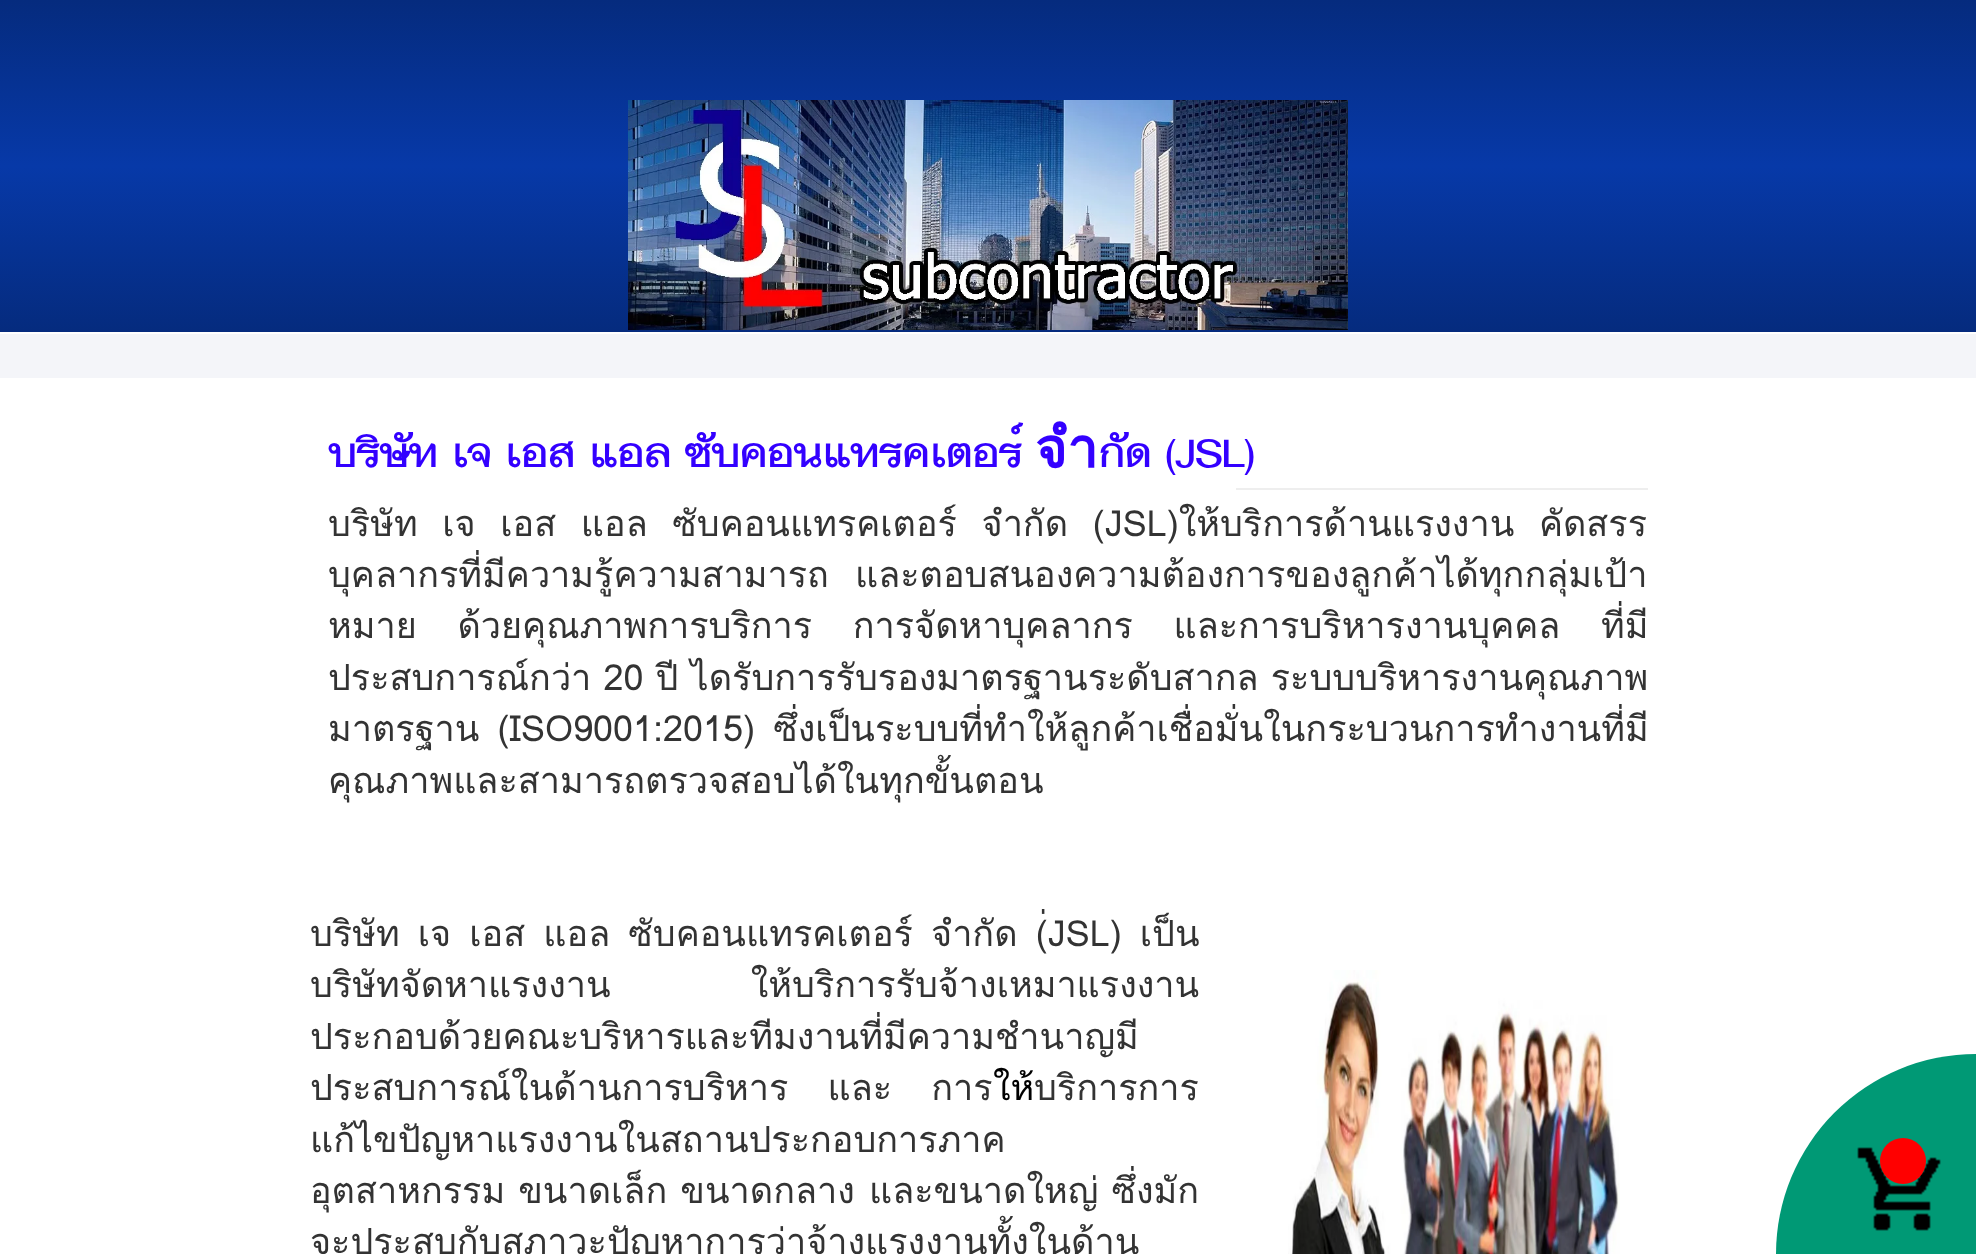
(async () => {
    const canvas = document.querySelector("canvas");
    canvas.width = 1976;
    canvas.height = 1254;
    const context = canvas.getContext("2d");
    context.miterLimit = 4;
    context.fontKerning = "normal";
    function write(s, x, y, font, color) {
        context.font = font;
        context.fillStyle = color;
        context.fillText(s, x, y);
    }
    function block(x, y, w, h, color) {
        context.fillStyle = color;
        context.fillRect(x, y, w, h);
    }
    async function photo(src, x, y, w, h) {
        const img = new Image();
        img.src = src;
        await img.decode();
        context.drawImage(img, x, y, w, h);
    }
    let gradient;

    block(0, 0, 1976, 1254, "rgb(255, 255, 255)");
    gradient = context.createLinearGradient(988, 0, 988, 332);
    gradient.addColorStop(0, "rgb(5, 43, 126)");
    gradient.addColorStop(0.5, "rgb(7, 57, 168)");
    gradient.addColorStop(1, "rgb(5, 43, 126)");
    context.fillStyle = gradient;
    context.fillRect(0, 0, 1976, 332);
    await photo("media/1.png", 628, 100, 720, 230);
    block(0, 334, 1976, 44, "rgb(244, 245, 249)");
    block(1236, 488, 412, 2, "rgb(238, 238, 238)");
    write("บริษัท เจ เอส แอล ซับคอนแทรคเตอร์ จำกัด (JSL)", 328, 467, "bold 55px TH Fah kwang", "rgb(51, 0, 255)");
    context.wordSpacing = "12.5px";
    write("บริษัท เจ เอส แอล ซับคอนแทรคเตอร์ จำกัด (JSL)ให้บริการด้านแรงงาน คัดสรร", 328, 536, "36px Loma", "rgb(51, 51, 51)");
    context.wordSpacing = "14px";
    write("บุคลากรที่มีความรู้ความสามารถ และตอบสนองความต้องการของลูกค้าได้ทุกกลุ่มเป้า", 328, 587, "36px Loma", "rgb(51, 51, 51)");
    context.wordSpacing = "28.5px";
    write("หมาย ด้วยคุณภาพการบริการ การจัดหาบุคลากร และการบริหารงานบุคคล ที่มี", 328, 638, "36px Loma", "rgb(51, 51, 51)");
    context.wordSpacing = "0px";
    write("ประสบการณ์กว่า 20 ปี ไดรับการรับรองมาตรฐานระดับสากล ระบบบริหารงานคุณภาพ", 328, 690, "36px Loma", "rgb(51, 51, 51)");
    context.wordSpacing = "6px";
    write("มาตรฐาน (ISO9001:2015) ซึ่งเป็นระบบที่ทำให้ลูกค้าเชื่อมั่นในกระบวนการทำงานที่มี", 328, 741, "36px Loma", "rgb(51, 51, 51)");
    context.wordSpacing = "0px";
    write("คุณภาพและสามารถตรวจสอบได้ในทุกขั้นตอน", 328, 793, "36px Loma", "rgb(51, 51, 51)");
    context.wordSpacing = "6px";
    write("บริษัท เจ เอส แอล ซับคอนแทรคเตอร์ จำกัด (่JSL) เป็น", 310, 946, "36px Loma", "rgb(51, 51, 51)");
    context.wordSpacing = "128px";
    write("บริษัทจัดหาแรงงาน ให้บริการรับจ้างเหมาแรงงาน", 310, 997, "36px Loma", "rgb(51, 51, 51)");
    context.wordSpacing = "0px";
    write("ประกอบด้วยคณะบริหารและทีมงานที่มีความชำนาญมี", 310, 1049, "36px Loma", "rgb(51, 51, 51)");
    context.wordSpacing = "27px";
    write("ประสบการณ์ในด้านการบริหาร และ การ", 310, 1100, "36px Loma", "rgb(51, 51, 51)");
    context.wordSpacing = "0px";
    write("ให้", 993, 1100, "36px Loma", "rgb(0, 0, 0)");
    write("บริการการ", 1034, 1100, "36px Loma", "rgb(51, 51, 51)");
    write("แก้ไขปัญหาแรงงานในสถานประกอบการภาค", 310, 1152, "36px Loma", "rgb(51, 51, 51)");
    context.wordSpacing = "1px";
    write("อุตสาหกรรม ขนาดเล็ก ขนาดกลาง", 310, 1203, "36px Loma", "rgb(51, 51, 51)");
    write("และขนาดใหญ่ ซึ่งมัก", 869, 1203, "36px Loma", "rgb(51, 51, 51)");
    context.wordSpacing = "0px";
    write("จะประสบกับสภาวะปัญหาการว่าจ้างแรงงานทั้งในด้าน", 310, 1254, "36px Loma", "rgb(51, 51, 51)");
    await photo("media/2.png", 1288, 970, 332, 284);
    context.fillStyle = "rgb(0, 153, 117)";
    context.beginPath();
    context.roundRect(1776, 1054, 200, 200, [200, 0, 0, 0]);
    context.fill();
    await photo("media/3.png", 1857, 1147, 84, 84);
    context.fillStyle = "rgb(255, 0, 0)";
    context.beginPath();
    context.arc(1903, 1161, 23, 0, Math.PI * 2);
    context.fill();
})();
